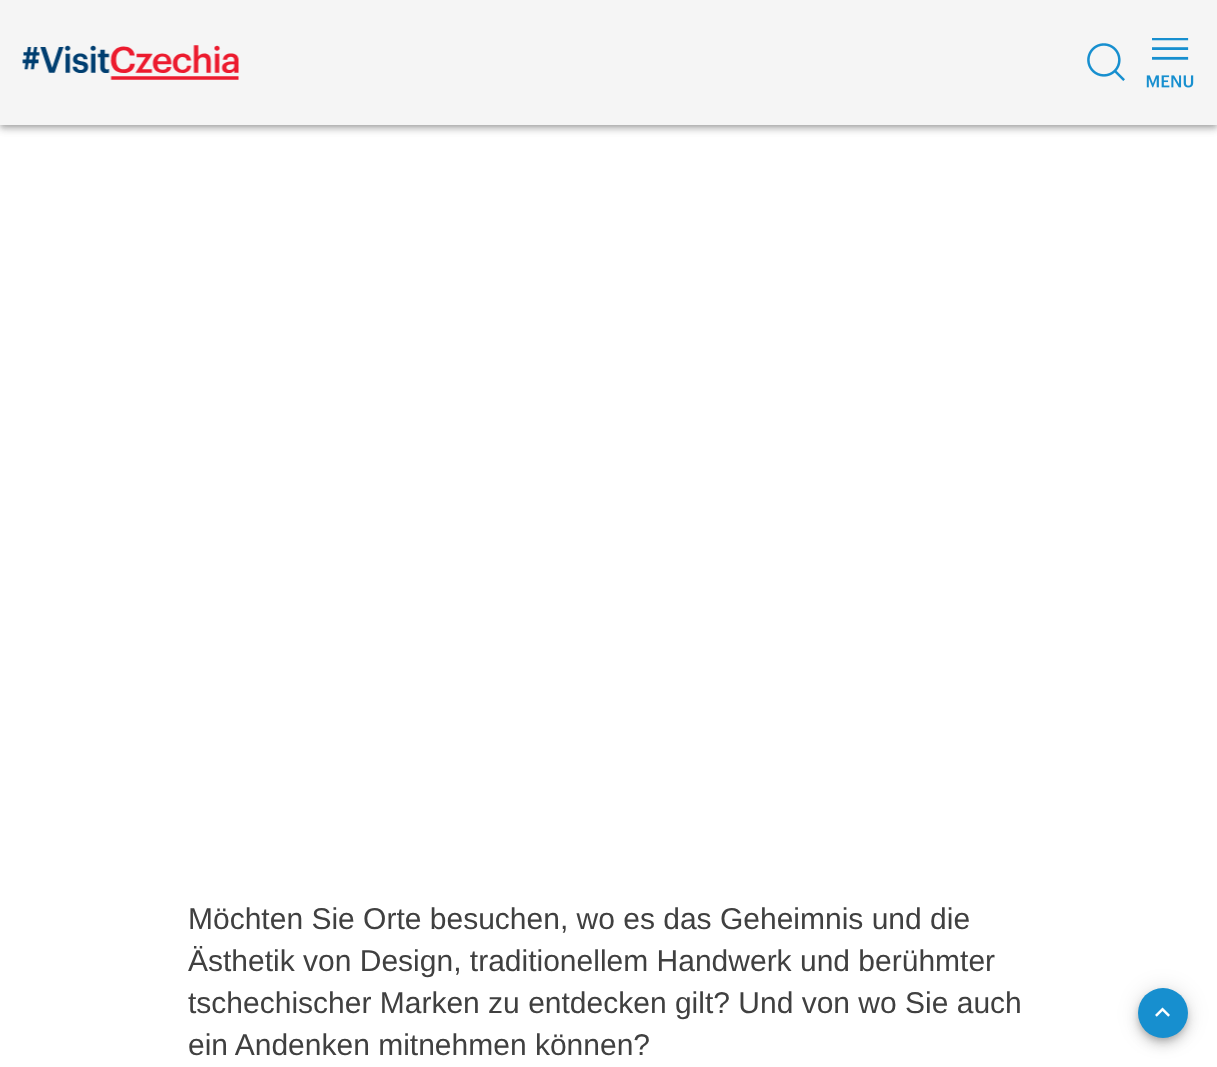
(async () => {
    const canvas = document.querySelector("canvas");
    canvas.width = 1217;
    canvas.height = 1067;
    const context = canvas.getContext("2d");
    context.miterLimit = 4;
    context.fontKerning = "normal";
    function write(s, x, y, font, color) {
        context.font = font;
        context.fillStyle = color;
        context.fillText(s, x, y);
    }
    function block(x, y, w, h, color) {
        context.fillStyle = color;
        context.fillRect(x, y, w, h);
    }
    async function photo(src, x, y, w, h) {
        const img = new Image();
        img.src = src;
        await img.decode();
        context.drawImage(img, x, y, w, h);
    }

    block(0, 0, 1217, 1067, "rgb(255, 255, 255)");
    context.fillStyle = "rgba(0, 0, 0, 0.12)";
    context.filter = "blur(6px)";
    context.beginPath();
    context.rect(0, 1, 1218, 125);
    context.fill();
    context.filter = "none";
    context.fillStyle = "rgba(0, 0, 0, 0.14)";
    context.filter = "blur(3px)";
    context.beginPath();
    context.rect(0, 5, 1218, 125);
    context.fill();
    context.filter = "none";
    context.fillStyle = "rgba(0, 0, 0, 0.2)";
    context.filter = "blur(2.5px)";
    context.beginPath();
    context.rect(1, 4, 1215, 122);
    context.fill();
    context.filter = "none";
    block(0, 0, 1217, 125, "rgb(245, 245, 245)");
    await photo("media/1.png", 22, 45, 217, 35);
    await photo("media/2.png", 1087, 43, 38, 38);
    await photo("media/3.png", 1146, 38, 48, 50);
    write("Möchten Sie Orte besuchen, wo es das Geheimnis und die", 188, 929, "30px Liberation Sans", "rgb(64, 64, 64)");
    write("Ästhetik von Design, traditionellem Handwerk und berühmter", 188, 971, "30px Liberation Sans", "rgb(64, 64, 64)");
    write("tschechischer Marken zu entdecken gilt? Und von wo Sie auch", 188, 1013, "30px Liberation Sans", "rgb(64, 64, 64)");
    write("ein Andenken mitnehmen können?", 188, 1055, "30px Liberation Sans", "rgb(64, 64, 64)");
    context.fillStyle = "rgba(0, 0, 0, 0.12)";
    context.filter = "blur(11px)";
    context.beginPath();
    context.roundRect(1138, 989, 50, 50, 25);
    context.fill();
    context.filter = "none";
    context.fillStyle = "rgba(0, 0, 0, 0.14)";
    context.filter = "blur(6px)";
    context.beginPath();
    context.roundRect(1138, 995, 50, 50, 25);
    context.fill();
    context.filter = "none";
    context.fillStyle = "rgba(0, 0, 0, 0.2)";
    context.filter = "blur(3px)";
    context.beginPath();
    context.roundRect(1139, 993, 47, 47, 23.5);
    context.fill();
    context.filter = "none";
    context.fillStyle = "rgb(23, 143, 207)";
    context.beginPath();
    context.arc(1163, 1013, 25, 0, Math.PI * 2);
    context.fill();
    await photo("media/4.png", 1155, 1007, 15, 10);
})();
